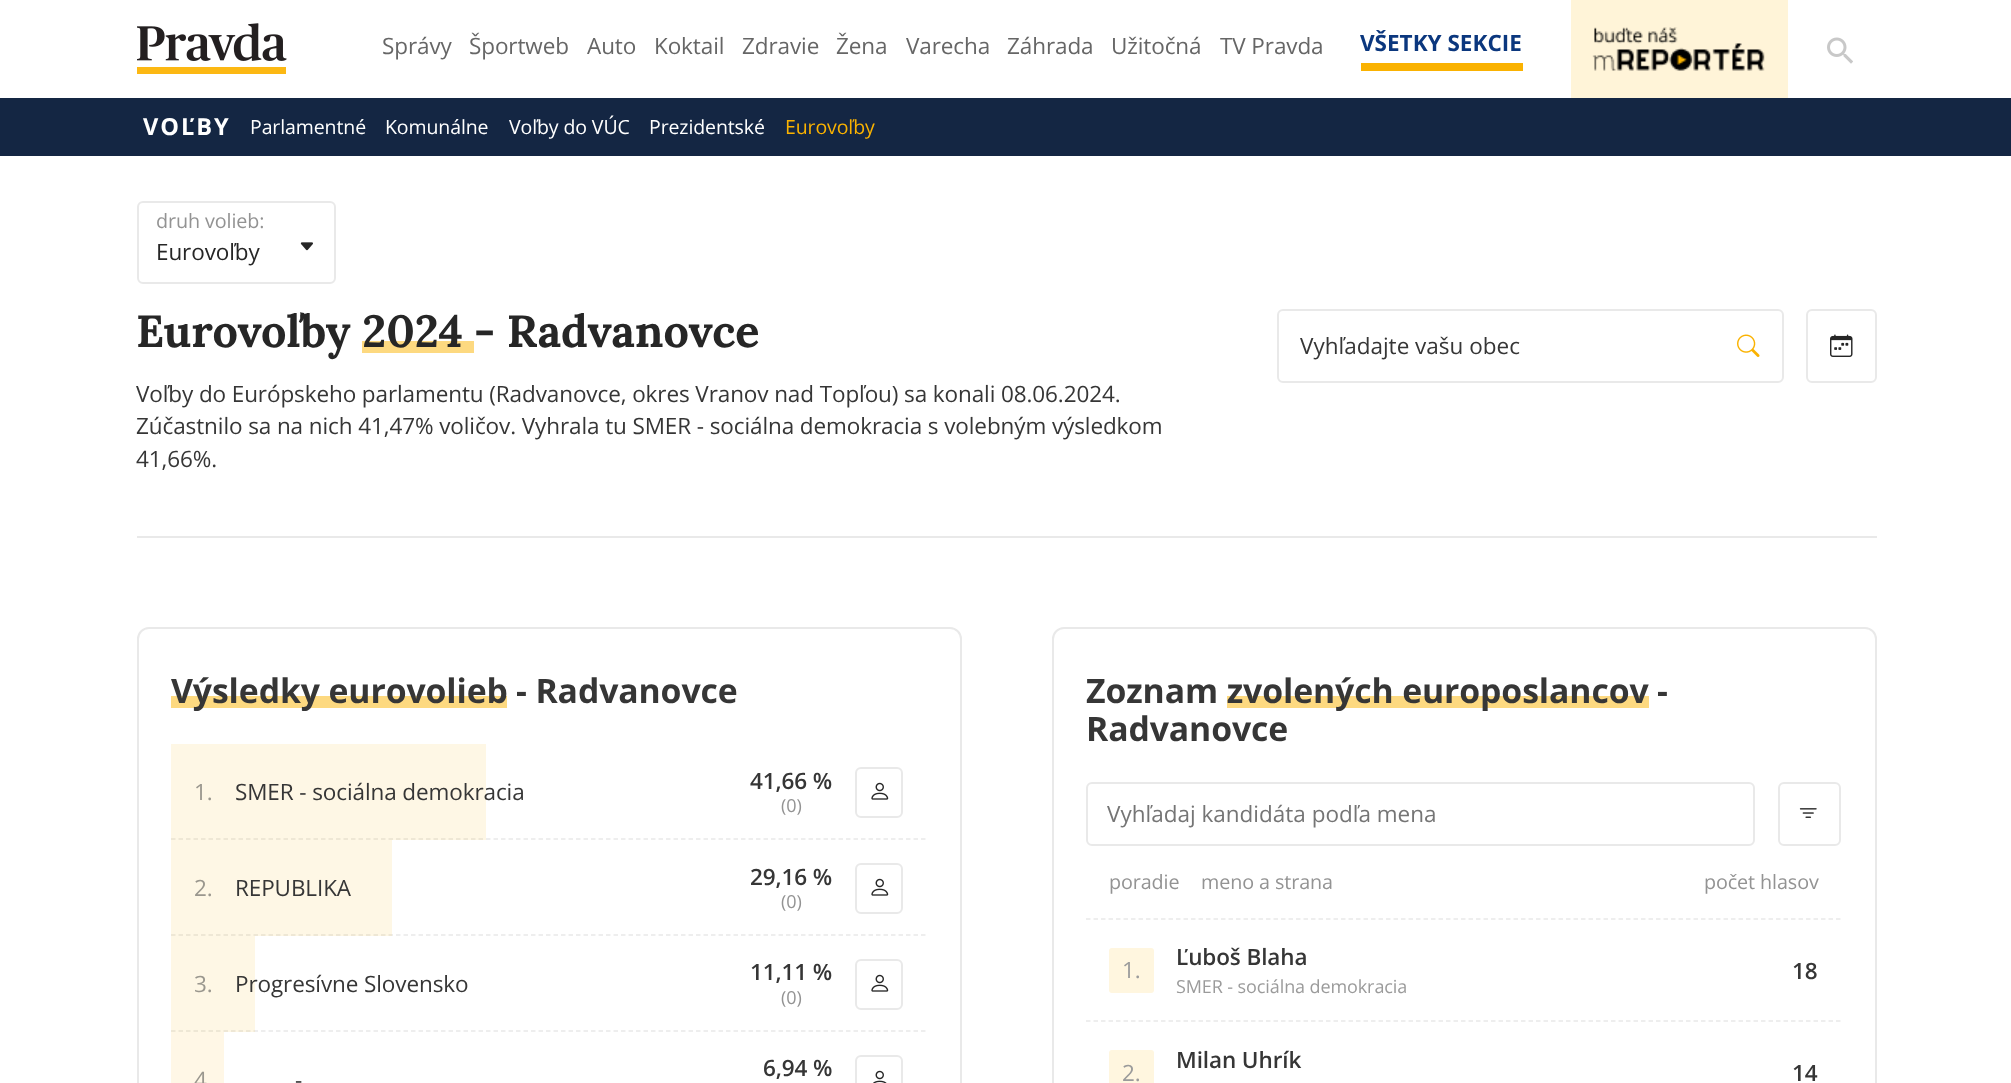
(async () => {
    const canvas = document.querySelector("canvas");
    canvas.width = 2011;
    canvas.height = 1083;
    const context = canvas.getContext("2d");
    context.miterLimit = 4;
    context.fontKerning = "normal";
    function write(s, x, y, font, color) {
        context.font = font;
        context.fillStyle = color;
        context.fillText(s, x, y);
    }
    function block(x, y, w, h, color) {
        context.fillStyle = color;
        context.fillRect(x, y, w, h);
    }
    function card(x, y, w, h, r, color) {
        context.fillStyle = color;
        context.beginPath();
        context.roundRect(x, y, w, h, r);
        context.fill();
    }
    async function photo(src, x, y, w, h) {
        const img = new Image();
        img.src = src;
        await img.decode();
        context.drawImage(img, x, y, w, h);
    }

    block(0, 0, 2011, 1083, "rgb(255, 255, 255)");
    await photo("media/1.png", 137, 23, 150, 51);
    context.letterSpacing = "-0.1px";
    write("Správy", 382, 54, "22.5px Open Sans", "rgb(102, 102, 102)");
    write("Športweb", 469, 54, "22.5px Open Sans", "rgb(102, 102, 102)");
    write("Auto", 587, 54, "22.5px Open Sans", "rgb(102, 102, 102)");
    write("Koktail", 654, 54, "22.5px Open Sans", "rgb(102, 102, 102)");
    write("Zdravie", 742, 54, "22.5px Open Sans", "rgb(102, 102, 102)");
    write("Žena", 836, 54, "22.5px Open Sans", "rgb(102, 102, 102)");
    write("Varecha", 906, 54, "22.5px Open Sans", "rgb(102, 102, 102)");
    write("Záhrada", 1007, 54, "22.5px Open Sans", "rgb(102, 102, 102)");
    write("Užitočná", 1111, 54, "22.5px Open Sans", "rgb(102, 102, 102)");
    write("TV Pravda", 1220, 54, "22.5px Open Sans", "rgb(102, 102, 102)");
    block(1361, 63, 162, 8, "rgb(250, 178, 1)");
    context.letterSpacing = "0px";
    write("VŠETKY SEKCIE", 1360, 51, "bold 22.5px Open Sans", "rgb(11, 55, 126)");
    block(1571, 0, 217, 98, "rgb(255, 244, 216)");
    await photo("media/2.png", 1592, 27, 173, 44);
    await photo("media/3.png", 1827, 37, 26, 27);
    block(0, 98, 2011, 58, "rgb(20, 38, 67)");
    context.letterSpacing = "2px";
    write("VOĽBY", 143, 135, "bold 23.5px Open Sans", "rgb(255, 255, 255)");
    context.letterSpacing = "-0.1px";
    write("Parlamentné", 250, 134, "19.5px Open Sans", "rgb(255, 255, 255)");
    write("Komunálne", 385, 134, "19.5px Open Sans", "rgb(255, 255, 255)");
    write("Voľby do VÚC", 509, 134, "19.5px Open Sans", "rgb(255, 255, 255)");
    write("Prezidentské", 649, 134, "19.5px Open Sans", "rgb(255, 255, 255)");
    write("Eurovoľby", 785, 134, "19.5px Open Sans", "rgb(250, 178, 1)");
    block(137, 536, 1740, 2, "rgb(233, 233, 233)");
    context.beginPath();
    context.roundRect(138, 202, 197, 81, 5);
    context.strokeStyle = "rgb(233, 233, 233)";
    context.lineWidth = 2;
    context.stroke();
    write("druh volieb:", 156, 228, "19.75px Open Sans", "rgb(147, 147, 147)");
    write("Eurovoľby", 156, 260, "22.5px Open Sans", "rgb(38, 38, 38)");
    await photo("media/4.png", 300, 242, 13, 9);
    block(362, 341, 112, 12, "rgb(253, 217, 128)");
    write("Eurovoľby 2024", 136, 347, "bold 45px Lora", "rgb(38, 38, 38)");
    write("- Radvanovce", 474, 347, "bold 45px Lora", "rgb(38, 38, 38)");
    write("Voľby do Európskeho parlamentu (Radvanovce, okres Vranov nad Topľou) sa konali 08.06.2024.", 136, 402, "22.5px Open Sans", "rgb(54, 54, 54)");
    write("Zúčastnilo sa na nich 41,47% voličov. Vyhrala tu SMER - sociálna demokracia s volebným výsledkom", 136, 434, "22.5px Open Sans", "rgb(54, 54, 54)");
    write("41,66%.", 136, 467, "22.5px Open Sans", "rgb(54, 54, 54)");
    context.beginPath();
    context.roundRect(1278, 310, 505, 72, 5);
    context.stroke();
    context.letterSpacing = "0px";
    write("Vyhľadajte vašu obec", 1300, 354, "22.5px Open Sans", "rgb(54, 54, 54)");
    await photo("media/5.png", 1737, 334, 23, 23);
    context.beginPath();
    context.roundRect(1807, 310, 69, 72, 5);
    context.stroke();
    await photo("media/6.png", 1830, 334, 23, 23);
    block(171, 696, 336, 12, "rgb(253, 217, 128)");
    context.beginPath();
    context.roundRect(138, 628, 823, 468, 11);
    context.stroke();
    context.letterSpacing = "-0.1px";
    write("Výsledky eurovolieb", 171, 703, "bold 33.75px Open Sans", "rgb(54, 54, 54)");
    write("- Radvanovce", 516, 703, "bold 33.75px Open Sans", "rgb(54, 54, 54)");
    context.beginPath();
    context.moveTo(171, 839);
    context.lineTo(925.5, 839);
    context.lineWidth = 1.5;
    context.setLineDash([4.5, 3]);
    context.stroke();
    block(171, 744, 315, 96, "rgba(250, 178, 1, 0.1)");
    write("41,66 %", 750, 789, "600 22.5px Open Sans", "rgb(54, 54, 54)");
    write("(0)", 781, 812, "18px Open Sans", "rgb(147, 147, 147)");
    context.beginPath();
    context.roundRect(856, 768, 46, 49, 5);
    context.lineWidth = 2;
    context.setLineDash([]);
    context.stroke();
    await photo("media/7.png", 871, 782, 18, 18);
    write("1.", 194, 800, "22.5px Open Sans", "rgb(154, 151, 142)");
    write("SMER - sociálna demokracia", 235, 800, "22.5px Open Sans", "rgb(54, 54, 54)");
    context.beginPath();
    context.moveTo(171, 935);
    context.lineTo(925.5, 935);
    context.lineWidth = 1.5;
    context.setLineDash([4.5, 3]);
    context.stroke();
    block(171, 840, 221, 96, "rgba(250, 178, 1, 0.1)");
    write("29,16 %", 750, 885, "600 22.5px Open Sans", "rgb(54, 54, 54)");
    write("(0)", 781, 908, "18px Open Sans", "rgb(147, 147, 147)");
    context.beginPath();
    context.roundRect(856, 864, 46, 49, 5);
    context.lineWidth = 2;
    context.setLineDash([]);
    context.stroke();
    await photo("media/7.png", 871, 878, 18, 18);
    write("2.", 194, 896, "22.5px Open Sans", "rgb(154, 151, 142)");
    write("REPUBLIKA", 235, 896, "22.5px Open Sans", "rgb(54, 54, 54)");
    context.beginPath();
    context.moveTo(171, 1031);
    context.lineTo(925.5, 1031);
    context.lineWidth = 1.5;
    context.setLineDash([4.5, 3]);
    context.stroke();
    block(171, 936, 84, 96, "rgba(250, 178, 1, 0.1)");
    write("11,11 %", 750, 980, "600 22.5px Open Sans", "rgb(54, 54, 54)");
    write("(0)", 781, 1004, "18px Open Sans", "rgb(147, 147, 147)");
    context.beginPath();
    context.roundRect(856, 960, 46, 49, 5);
    context.lineWidth = 2;
    context.setLineDash([]);
    context.stroke();
    await photo("media/7.png", 871, 974, 18, 18);
    write("3.", 194, 992, "22.5px Open Sans", "rgb(154, 151, 142)");
    write("Progresívne Slovensko", 235, 992, "22.5px Open Sans", "rgb(54, 54, 54)");
    block(171, 1032, 53, 51, "rgb(255, 247, 230)");
    write("6,94 %", 763, 1076, "600 22.5px Open Sans", "rgb(54, 54, 54)");
    context.beginPath();
    context.roundRect(856, 1056, 46, 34, 5);
    context.stroke();
    await photo("media/8.png", 873, 1070, 14, 13);
    write("4", 194, 1088, "22.5px Open Sans", "rgb(154, 151, 142)");
    write("-", 295, 1088, "22.5px Open Sans", "rgb(54, 54, 54)");
    block(1227, 696, 422, 12, "rgb(253, 217, 128)");
    context.beginPath();
    context.roundRect(1053, 628, 823, 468, 11);
    context.stroke();
    write("Zoznam zvolených europoslancov", 1086, 703, "bold 33.75px Open Sans", "rgb(54, 54, 54)");
    write("-", 1657, 703, "bold 33.75px Open Sans", "rgb(54, 54, 54)");
    write("Radvanovce", 1086, 741, "bold 33.75px Open Sans", "rgb(54, 54, 54)");
    context.beginPath();
    context.roundRect(1087, 783, 667, 62, 5);
    context.stroke();
    context.letterSpacing = "0px";
    write("Vyhľadaj kandidáta podľa mena", 1107, 822, "22.5px Open Sans", "rgb(117, 117, 117)");
    context.beginPath();
    context.roundRect(1779, 783, 61, 62, 5);
    context.stroke();
    await photo("media/9.png", 1799, 808, 18, 10);
    context.letterSpacing = "-0.1px";
    write("poradie", 1109, 889, "19.75px Open Sans", "rgb(147, 147, 147)");
    write("meno a strana", 1201, 889, "19.75px Open Sans", "rgb(147, 147, 147)");
    write("počet hlasov", 1704, 889, "19.75px Open Sans", "rgb(147, 147, 147)");
    context.beginPath();
    context.moveTo(1086, 919);
    context.lineTo(1840.5, 919);
    context.lineWidth = 1.5;
    context.setLineDash([4.5, 3]);
    context.stroke();
    card(1109, 948, 45, 45, 3, "rgb(255, 246, 223)");
    write("1.", 1122, 978, "22.5px Open Sans", "rgb(155, 155, 155)");
    write("Ľuboš Blaha", 1176, 965, "600 22.5px Open Sans", "rgb(54, 54, 54)");
    write("SMER - sociálna demokracia", 1176, 993, "18px Open Sans", "rgb(155, 155, 155)");
    write("18", 1792, 979, "600 22.5px Open Sans", "rgb(54, 54, 54)");
    context.beginPath();
    context.moveTo(1086, 1021);
    context.lineTo(1840.5, 1021);
    context.stroke();
    write("Milan Uhrík", 1176, 1068, "600 22.5px Open Sans", "rgb(54, 54, 54)");
    card(1109, 1050, 45, 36, 3, "rgb(255, 246, 223)");
    write("2.", 1122, 1081, "22.5px Open Sans", "rgb(155, 155, 155)");
    write("14", 1792, 1081, "600 22.5px Open Sans", "rgb(54, 54, 54)");
})();
